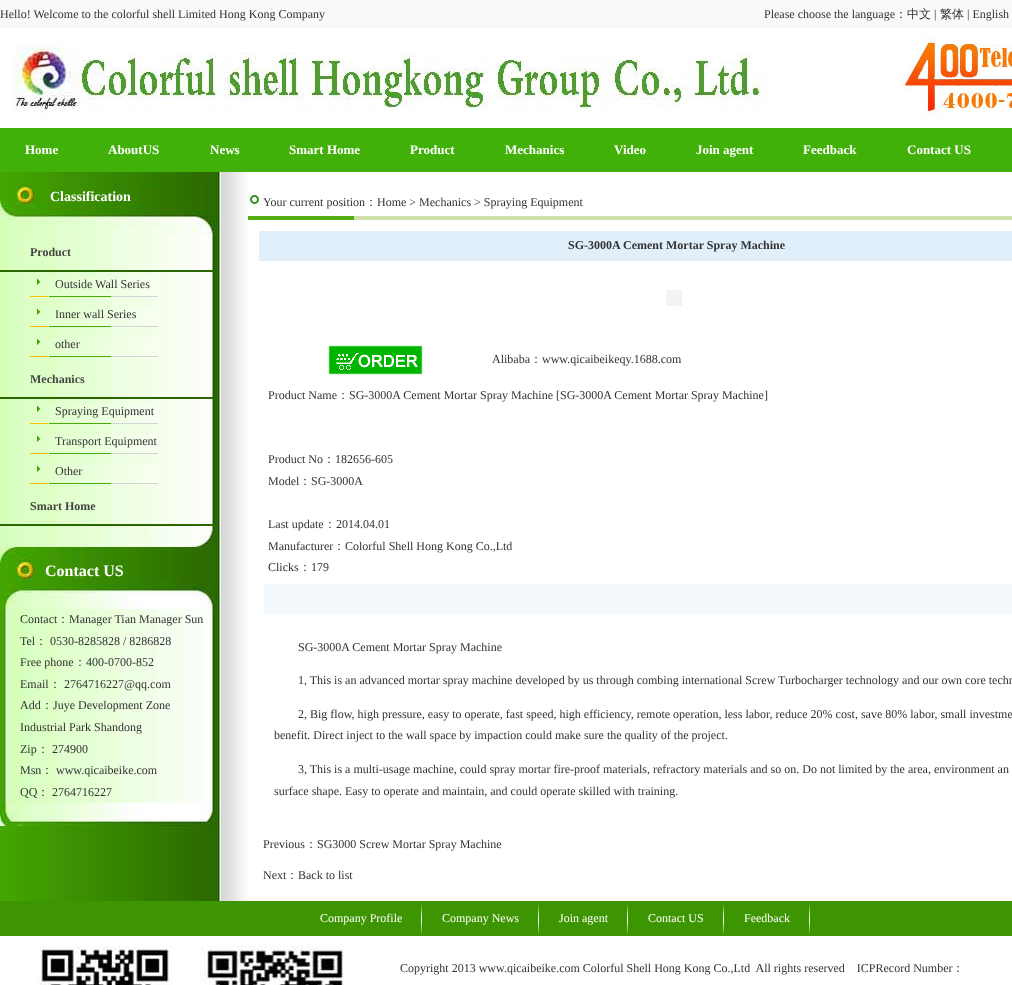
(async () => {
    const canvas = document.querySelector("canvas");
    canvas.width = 1012;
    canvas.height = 985;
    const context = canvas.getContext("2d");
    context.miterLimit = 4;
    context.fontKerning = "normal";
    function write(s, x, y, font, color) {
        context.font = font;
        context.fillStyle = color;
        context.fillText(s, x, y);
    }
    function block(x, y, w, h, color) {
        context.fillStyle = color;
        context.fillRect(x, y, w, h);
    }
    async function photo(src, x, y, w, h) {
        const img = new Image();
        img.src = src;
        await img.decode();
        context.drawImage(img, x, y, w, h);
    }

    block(0, 0, 1012, 985, "rgb(255, 255, 255)");
    block(0, 0, 1012, 28, "rgb(249, 249, 249)");
    write("Hello! Welcome to the colorful shell Limited Hong Kong Company", 0, 18, "12px Liberation Serif", "rgb(51, 51, 51)");
    write("Please choose the language", 764, 18, "12px Liberation Serif", "rgb(51, 51, 51)");
    write("：中文", 895, 18, "500 12px WenQuanYi Zen Hei", "rgb(51, 51, 51)");
    write("|", 934, 18, "12px Liberation Serif", "rgb(51, 51, 51)");
    write("繁体", 940, 18, "500 12px WenQuanYi Zen Hei", "rgb(51, 51, 51)");
    write("| English", 967, 18, "12px Liberation Serif", "rgb(51, 51, 51)");
    await photo("media/1.png", 12, 44, 756, 72);
    await photo("media/2.png", 900, 36, 112, 80);
    block(0, 128, 1012, 44, "rgb(65, 176, 9)");
    write("Home", 25, 154, "bold 13px Liberation Serif", "rgb(255, 255, 255)");
    write("AboutUS", 108, 154, "bold 13px Liberation Serif", "rgb(255, 255, 255)");
    write("News", 210, 154, "bold 13px Liberation Serif", "rgb(255, 255, 255)");
    write("Smart Home", 289, 154, "bold 13px Liberation Serif", "rgb(255, 255, 255)");
    write("Product", 410, 154, "bold 13px Liberation Serif", "rgb(255, 255, 255)");
    write("Mechanics", 505, 154, "bold 13px Liberation Serif", "rgb(255, 255, 255)");
    write("Video", 614, 154, "bold 13px Liberation Serif", "rgb(255, 255, 255)");
    write("Join agent", 696, 154, "bold 13px Liberation Serif", "rgb(255, 255, 255)");
    write("Feedback", 803, 154, "bold 13px Liberation Serif", "rgb(255, 255, 255)");
    write("Contact US", 907, 154, "bold 13px Liberation Serif", "rgb(255, 255, 255)");
    await photo("media/3.png", 0, 172, 248, 729);
    await photo("media/4.png", 0, 172, 218, 63);
    write("Classification", 50, 201, "bold 14px Liberation Serif", "rgb(255, 255, 255)");
    await photo("media/5.png", 0, 235, 218, 35);
    block(0, 270, 218, 2, "rgb(42, 103, 0)");
    write("Product", 30, 256, "bold 12px Liberation Serif", "rgb(69, 69, 69)");
    await photo("media/6.png", 0, 272, 218, 90);
    await photo("media/7.png", 30, 277, 128, 20);
    write("Outside Wall Series", 55, 288, "12px Liberation Serif", "rgb(51, 51, 51)");
    await photo("media/7.png", 30, 307, 128, 20);
    write("Inner wall Series", 55, 318, "12px Liberation Serif", "rgb(51, 51, 51)");
    await photo("media/7.png", 30, 337, 128, 20);
    write("other", 55, 348, "12px Liberation Serif", "rgb(51, 51, 51)");
    await photo("media/5.png", 0, 362, 218, 35);
    block(0, 397, 218, 2, "rgb(42, 103, 0)");
    write("Mechanics", 30, 383, "bold 12px Liberation Serif", "rgb(69, 69, 69)");
    await photo("media/6.png", 0, 399, 218, 90);
    await photo("media/7.png", 30, 404, 128, 20);
    write("Spraying Equipment", 55, 415, "12px Liberation Serif", "rgb(51, 51, 51)");
    await photo("media/7.png", 30, 434, 128, 20);
    write("Transport Equipment", 55, 445, "12px Liberation Serif", "rgb(51, 51, 51)");
    await photo("media/7.png", 30, 464, 128, 20);
    write("Other", 55, 475, "12px Liberation Serif", "rgb(51, 51, 51)");
    await photo("media/5.png", 0, 489, 218, 35);
    block(0, 524, 218, 2, "rgb(42, 103, 0)");
    write("Smart Home", 30, 510, "bold 12px Liberation Serif", "rgb(69, 69, 69)");
    await photo("media/8.png", 0, 526, 218, 21);
    await photo("media/9.png", 0, 547, 218, 62);
    write("Contact US", 45, 576, "bold 16px Liberation Serif", "rgb(255, 255, 255)");
    await photo("media/10.png", 0, 609, 218, 194);
    write("Contact", 20, 623, "12px Liberation Serif", "rgb(51, 51, 51)");
    write("：", 57, 623, "500 12px WenQuanYi Zen Hei", "rgb(51, 51, 51)");
    write("Manager Tian Manager Sun", 69, 623, "12px Liberation Serif", "rgb(51, 51, 51)");
    write("Tel", 20, 645, "12px Liberation Serif", "rgb(51, 51, 51)");
    write("：", 35, 645, "500 12px WenQuanYi Zen Hei", "rgb(51, 51, 51)");
    write("0530-8285828 / 8286828", 50, 645, "12px Liberation Serif", "rgb(51, 51, 51)");
    write("Free phone", 20, 666, "12px Liberation Serif", "rgb(51, 51, 51)");
    write("：", 74, 666, "500 12px WenQuanYi Zen Hei", "rgb(51, 51, 51)");
    write("400-0700-852", 86, 666, "12px Liberation Serif", "rgb(51, 51, 51)");
    write("Email", 20, 688, "12px Liberation Serif", "rgb(51, 51, 51)");
    write("：", 49, 688, "500 12px WenQuanYi Zen Hei", "rgb(51, 51, 51)");
    write("2764716227@qq.com", 64, 688, "12px Liberation Serif", "rgb(51, 51, 51)");
    write("Add", 20, 709, "12px Liberation Serif", "rgb(51, 51, 51)");
    write("：", 41, 709, "500 12px WenQuanYi Zen Hei", "rgb(51, 51, 51)");
    write("Juye Development Zone", 53, 709, "12px Liberation Serif", "rgb(51, 51, 51)");
    write("Industrial Park Shandong", 20, 731, "12px Liberation Serif", "rgb(51, 51, 51)");
    write("Zip", 20, 753, "12px Liberation Serif", "rgb(51, 51, 51)");
    write("：", 37, 753, "500 12px WenQuanYi Zen Hei", "rgb(51, 51, 51)");
    write("274900", 52, 753, "12px Liberation Serif", "rgb(51, 51, 51)");
    write("Msn", 20, 774, "12px Liberation Serif", "rgb(51, 51, 51)");
    write("：", 41, 774, "500 12px WenQuanYi Zen Hei", "rgb(51, 51, 51)");
    write("www.qicaibeike.com", 56, 774, "12px Liberation Serif", "rgb(51, 51, 51)");
    write("QQ", 20, 796, "12px Liberation Serif", "rgb(51, 51, 51)");
    write("：", 37, 796, "500 12px WenQuanYi Zen Hei", "rgb(51, 51, 51)");
    write("2764716227", 52, 796, "12px Liberation Serif", "rgb(51, 51, 51)");
    await photo("media/11.png", 0, 803, 218, 23);
    await photo("media/12.png", 248, 192, 764, 28);
    write("Your current position", 263, 206, "12px Liberation Serif", "rgb(51, 51, 51)");
    write("：", 365, 206, "500 12px WenQuanYi Zen Hei", "rgb(51, 51, 51)");
    write("Home > Mechanics > Spraying Equipment", 377, 206, "12px Liberation Serif", "rgb(51, 51, 51)");
    block(259, 231, 753, 30, "rgb(225, 239, 251)");
    write("SG-3000A Cement Mortar Spray Machine", 568, 249, "bold 12px Liberation Serif", "rgb(51, 51, 51)");
    block(666, 290, 16, 16, "rgb(243, 243, 243)");
    await photo("media/13.png", 328, 345, 95, 30);
    write("Alibaba", 492, 363, "12px Liberation Serif", "rgb(51, 51, 51)");
    write("：", 530, 363, "500 12px WenQuanYi Zen Hei", "rgb(51, 51, 51)");
    write("www.qicaibeikeqy.1688.com", 542, 363, "12px Liberation Serif", "rgb(51, 51, 51)");
    write("Product Name", 268, 399, "12px Liberation Serif", "rgb(51, 51, 51)");
    write("：", 337, 399, "500 12px WenQuanYi Zen Hei", "rgb(51, 51, 51)");
    write("SG-3000A Cement Mortar Spray Machine [SG-3000A Cement Mortar Spray Machine]", 349, 399, "12px Liberation Serif", "rgb(51, 51, 51)");
    write("Product No", 268, 463, "12px Liberation Serif", "rgb(51, 51, 51)");
    write("：", 323, 463, "500 12px WenQuanYi Zen Hei", "rgb(51, 51, 51)");
    write("182656-605", 335, 463, "12px Liberation Serif", "rgb(51, 51, 51)");
    write("Model", 268, 485, "12px Liberation Serif", "rgb(51, 51, 51)");
    write("：", 299, 485, "500 12px WenQuanYi Zen Hei", "rgb(51, 51, 51)");
    write("SG-3000A", 311, 485, "12px Liberation Serif", "rgb(51, 51, 51)");
    write("Last update", 268, 528, "12px Liberation Serif", "rgb(51, 51, 51)");
    write("：", 324, 528, "500 12px WenQuanYi Zen Hei", "rgb(51, 51, 51)");
    write("2014.04.01", 336, 528, "12px Liberation Serif", "rgb(51, 51, 51)");
    write("Manufacturer", 268, 550, "12px Liberation Serif", "rgb(51, 51, 51)");
    write("：", 333, 550, "500 12px WenQuanYi Zen Hei", "rgb(51, 51, 51)");
    write("Colorful Shell Hong Kong Co.,Ltd", 345, 550, "12px Liberation Serif", "rgb(51, 51, 51)");
    write("Clicks", 268, 571, "12px Liberation Serif", "rgb(51, 51, 51)");
    write("：", 299, 571, "500 12px WenQuanYi Zen Hei", "rgb(51, 51, 51)");
    write("179", 311, 571, "12px Liberation Serif", "rgb(51, 51, 51)");
    block(264, 584, 748, 30, "rgb(244, 249, 253)");
    write("SG-3000A Cement Mortar Spray Machine", 298, 651, "12px Liberation Serif", "rgb(51, 51, 51)");
    write("1, This is an advanced mortar spray machine developed by us through combing international Screw Turbocharger technology and our own core techn", 298, 684, "12px Liberation Serif", "rgb(51, 51, 51)");
    write("2, Big flow, high pressure, easy to operate, fast speed, high efficiency, remote operation, less labor, reduce 20% cost, save 80% labor, small investme", 298, 718, "12px Liberation Serif", "rgb(51, 51, 51)");
    write("benefit. Direct inject to the wall space by impaction could make sure the quality of the project.", 274, 739, "12px Liberation Serif", "rgb(51, 51, 51)");
    write("3, This is a multi-usage machine, could spray mortar fire-proof materials, refractory materials and so on. Do not limited by the area, environment an", 298, 773, "12px Liberation Serif", "rgb(51, 51, 51)");
    write("surface shape. Easy to operate and maintain, and could operate skilled with training.", 274, 795, "12px Liberation Serif", "rgb(51, 51, 51)");
    write("Previous", 263, 848, "12px Liberation Serif", "rgb(51, 51, 51)");
    write("：", 305, 848, "500 12px WenQuanYi Zen Hei", "rgb(51, 51, 51)");
    write("SG3000 Screw Mortar Spray Machine", 317, 848, "12px Liberation Serif", "rgb(51, 51, 51)");
    write("Next", 263, 879, "12px Liberation Serif", "rgb(51, 51, 51)");
    write("：", 286, 879, "500 12px WenQuanYi Zen Hei", "rgb(51, 51, 51)");
    write("Back to list", 298, 879, "12px Liberation Serif", "rgb(51, 51, 51)");
    block(0, 901, 1012, 35, "rgb(61, 149, 1)");
    await photo("media/14.png", 420, 904, 2, 30);
    write("Company Profile", 320, 922, "12px Liberation Serif", "rgb(255, 255, 255)");
    await photo("media/14.png", 537, 904, 2, 30);
    write("Company News", 442, 922, "12px Liberation Serif", "rgb(255, 255, 255)");
    await photo("media/14.png", 626, 904, 2, 30);
    write("Join agent", 559, 922, "12px Liberation Serif", "rgb(255, 255, 255)");
    await photo("media/14.png", 722, 904, 2, 30);
    write("Contact US", 648, 922, "12px Liberation Serif", "rgb(255, 255, 255)");
    await photo("media/14.png", 808, 904, 2, 30);
    write("Feedback", 744, 922, "12px Liberation Serif", "rgb(255, 255, 255)");
    await photo("media/15.png", 38, 946, 136, 39);
    await photo("media/16.png", 200, 946, 145, 39);
    write("Copyright 2013 www.qicaibeike.com Colorful Shell Hong Kong Co.,Ltd  All rights reserved    ICPRecord Number", 400, 972, "12px Liberation Serif", "rgb(51, 51, 51)");
    write("：", 952, 972, "500 12px WenQuanYi Zen Hei", "rgb(51, 51, 51)");
})();
